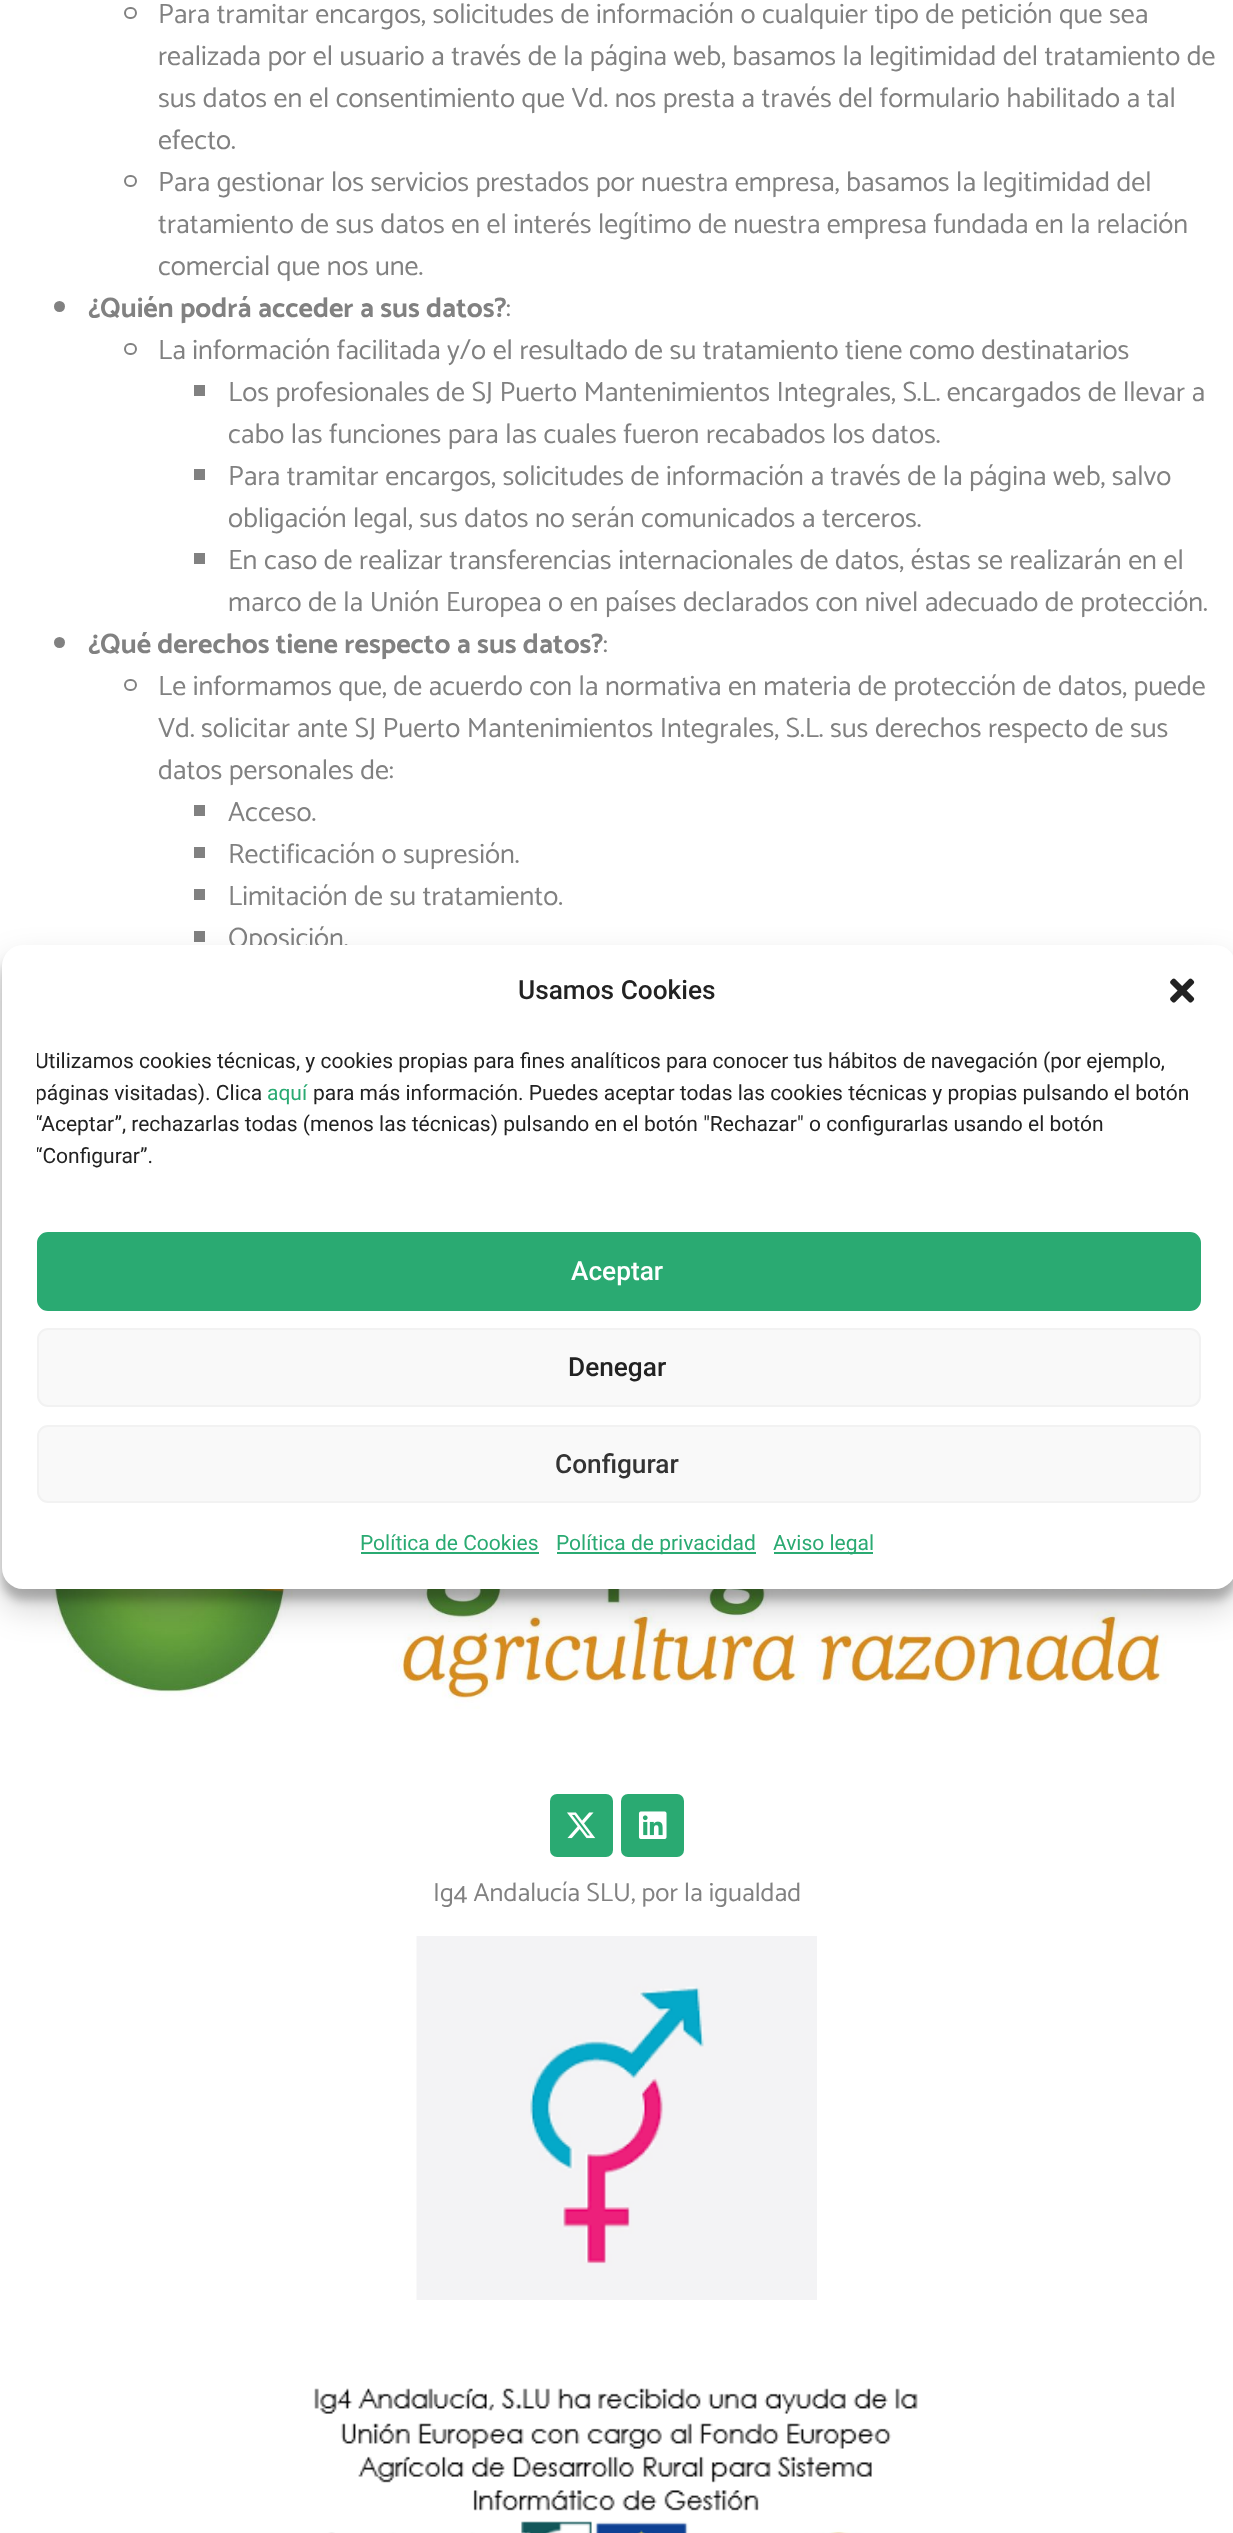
(async () => {
    const canvas = document.querySelector("canvas");
    canvas.width = 1233;
    canvas.height = 2533;
    const context = canvas.getContext("2d");
    context.miterLimit = 4;
    context.fontKerning = "normal";
    function write(s, x, y, font, color) {
        context.font = font;
        context.fillStyle = color;
        context.fillText(s, x, y);
    }
    function block(x, y, w, h, color) {
        context.fillStyle = color;
        context.fillRect(x, y, w, h);
    }
    function card(x, y, w, h, r, color) {
        context.fillStyle = color;
        context.beginPath();
        context.roundRect(x, y, w, h, r);
        context.fill();
    }
    async function photo(src, x, y, w, h) {
        const img = new Image();
        img.src = src;
        await img.decode();
        context.drawImage(img, x, y, w, h);
    }

    block(0, 0, 1233, 2533, "rgb(255, 255, 255)");
    context.beginPath();
    context.roundRect(125, 8, 11, 10, 5);
    context.strokeStyle = "rgb(129, 129, 129)";
    context.lineWidth = 2;
    context.stroke();
    write("Para tramitar encargos, solicitudes de información o cualquier tipo de petición que sea", 158, 23, "28px Catamaran", "rgb(129, 129, 129)");
    write("realizada por el usuario a través de la página web, basamos la legitimidad del tratamiento de", 158, 65, "28px Catamaran", "rgb(129, 129, 129)");
    write("sus datos en el consentimiento que Vd. nos presta a través del formulario habilitado a tal", 158, 107, "28px Catamaran", "rgb(129, 129, 129)");
    write("efecto.", 158, 149, "28px Catamaran", "rgb(129, 129, 129)");
    context.beginPath();
    context.roundRect(125, 176, 11, 10, 5);
    context.stroke();
    write("Para gestionar los servicios prestados por nuestra empresa, basamos la legitimidad del", 158, 191, "28px Catamaran", "rgb(129, 129, 129)");
    write("tratamiento de sus datos en el interés legítimo de nuestra empresa fundada en la relación", 158, 233, "28px Catamaran", "rgb(129, 129, 129)");
    write("comercial que nos une.", 158, 275, "28px Catamaran", "rgb(129, 129, 129)");
    context.beginPath();
    context.arc(59.5, 306.5, 5.5, 0, Math.PI * 2);
    context.fill();
    write("¿Quién podrá acceder a sus datos?", 88, 317, "bold 28px Catamaran", "rgb(129, 129, 129)");
    write(":", 506, 317, "28px Catamaran", "rgb(129, 129, 129)");
    context.beginPath();
    context.roundRect(125, 344, 11, 10, 5);
    context.stroke();
    write("La información facilitada y/o el resultado de su tratamiento tiene como destinatarios", 158, 359, "28px Catamaran", "rgb(129, 129, 129)");
    block(194, 385, 11, 11, "rgb(129, 129, 129)");
    write("Los profesionales de SJ Puerto Mantenimientos Integrales, S.L. encargados de llevar a", 228, 401, "28px Catamaran", "rgb(129, 129, 129)");
    write("cabo las funciones para las cuales fueron recabados los datos.", 228, 443, "28px Catamaran", "rgb(129, 129, 129)");
    block(194, 469, 11, 11, "rgb(129, 129, 129)");
    write("Para tramitar encargos, solicitudes de información a través de la página web, salvo", 228, 485, "28px Catamaran", "rgb(129, 129, 129)");
    write("obligación legal, sus datos no serán comunicados a terceros.", 228, 527, "28px Catamaran", "rgb(129, 129, 129)");
    block(194, 553, 11, 11, "rgb(129, 129, 129)");
    write("En caso de realizar transferencias internacionales de datos, éstas se realizarán en el", 228, 569, "28px Catamaran", "rgb(129, 129, 129)");
    write("marco de la Unión Europea o en países declarados con nivel adecuado de protección.", 228, 611, "28px Catamaran", "rgb(129, 129, 129)");
    context.beginPath();
    context.arc(59.5, 642.5, 5.5, 0, Math.PI * 2);
    context.fill();
    write("¿Qué derechos tiene respecto a sus datos?", 88, 653, "bold 28px Catamaran", "rgb(129, 129, 129)");
    write(":", 603, 653, "28px Catamaran", "rgb(129, 129, 129)");
    context.beginPath();
    context.roundRect(125, 680, 11, 10, 5);
    context.stroke();
    write("Le informamos que, de acuerdo con la normativa en materia de protección de datos, puede", 158, 695, "28px Catamaran", "rgb(129, 129, 129)");
    write("Vd. solicitar ante SJ Puerto Mantenimientos Integrales, S.L. sus derechos respecto de sus", 158, 737, "28px Catamaran", "rgb(129, 129, 129)");
    write("datos personales de:", 158, 779, "28px Catamaran", "rgb(129, 129, 129)");
    block(194, 805, 11, 11, "rgb(129, 129, 129)");
    write("Acceso.", 228, 821, "28px Catamaran", "rgb(129, 129, 129)");
    block(194, 847, 11, 11, "rgb(129, 129, 129)");
    write("Rectificación o supresión.", 228, 863, "28px Catamaran", "rgb(129, 129, 129)");
    block(194, 889, 11, 11, "rgb(129, 129, 129)");
    write("Limitación de su tratamiento.", 228, 905, "28px Catamaran", "rgb(129, 129, 129)");
    block(194, 931, 11, 11, "rgb(129, 129, 129)");
    write("Oposición.", 228, 947, "28px Catamaran", "rgb(129, 129, 129)");
    await photo("media/2.png", 52, 1589, 1128, 120);
    context.fillStyle = "rgba(0, 0, 0, 0.23)";
    context.filter = "blur(5px)";
    context.beginPath();
    context.roundRect(2, 956, 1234, 644, 21);
    context.fill();
    context.filter = "none";
    context.fillStyle = "rgba(0, 0, 0, 0.19)";
    context.filter = "blur(17.5px)";
    context.beginPath();
    context.roundRect(2, 963, 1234, 644, 21);
    context.fill();
    context.filter = "none";
    card(2, 945, 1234, 644, 21, "rgb(255, 255, 255)");
    write("Usamos Cookies", 518, 999, "500 26.25px Roboto", "rgb(34, 34, 34)");
    await photo("media/1.png", 1170, 978, 25, 25);
    context.save();
    context.beginPath();
    context.rect(37, 1047, 1164, 150);
    context.clip();
    write("Utilizamos cookies técnicas, y cookies propias para fines analíticos para conocer tus hábitos de navegación (por ejemplo,", 35, 1068, "21px Roboto", "rgb(34, 34, 34)");
    write("páginas visitadas). Clica", 35, 1100, "21px Roboto", "rgb(34, 34, 34)");
    context.restore();
    write("aquí", 267, 1100, "21px Roboto", "rgb(42, 170, 114)");
    write("para más información. Puedes aceptar todas las cookies técnicas y propias pulsando el botón", 313, 1100, "21px Roboto", "rgb(34, 34, 34)");
    context.save();
    context.beginPath();
    context.rect(37, 1047, 1164, 150);
    context.clip();
    write("“Aceptar”, rechazarlas todas (menos las técnicas) pulsando en el botón \"Rechazar\" o configurarlas usando el botón", 35, 1131, "21px Roboto", "rgb(34, 34, 34)");
    write("“Configurar”.", 35, 1163, "21px Roboto", "rgb(34, 34, 34)");
    context.restore();
    context.fillStyle = "rgb(42, 170, 114)";
    context.beginPath();
    context.roundRect(38, 1233, 1162, 77, 10);
    context.fill();
    context.strokeStyle = "rgb(42, 170, 114)";
    context.stroke();
    write("Aceptar", 571, 1280, "500 26.25px Roboto", "rgb(255, 255, 255)");
    context.fillStyle = "rgb(249, 249, 249)";
    context.beginPath();
    context.roundRect(38, 1329, 1162, 77, 10);
    context.fill();
    context.strokeStyle = "rgb(242, 242, 242)";
    context.stroke();
    write("Denegar", 568, 1376, "500 26.25px Roboto", "rgb(34, 34, 34)");
    context.fillStyle = "rgb(249, 249, 249)";
    context.beginPath();
    context.roundRect(38, 1426, 1162, 76, 10);
    context.fill();
    context.stroke();
    write("Configurar", 555, 1473, "500 26.25px Roboto", "rgb(51, 51, 51)");
    write("Política de Cookies", 360, 1550, "21px Roboto", "rgb(42, 170, 114)");
    block(361, 1552, 178, 2, "rgb(42, 170, 114)");
    block(557, 1552, 199, 2, "rgb(42, 170, 114)");
    write("Política de privacidad", 556, 1550, "21px Roboto", "rgb(42, 170, 114)");
    block(774, 1552, 99, 2, "rgb(42, 170, 114)");
    write("Aviso legal", 773, 1550, "21px Roboto", "rgb(42, 170, 114)");
    card(550, 1794, 63, 63, 7, "rgb(42, 170, 114)");
    await photo("media/3.png", 567, 1812, 29, 27);
    card(621, 1794, 63, 63, 7, "rgb(42, 170, 114)");
    await photo("media/4.png", 638, 1811, 29, 28);
    write("Ig4 Andalucía SLU, por la igualdad", 433, 1901, "26.25px Catamaran", "rgb(129, 129, 129)");
    await photo("media/5.png", 416, 1936, 401, 364);
    await photo("media/6.png", 314, 2300, 604, 233);
})();
